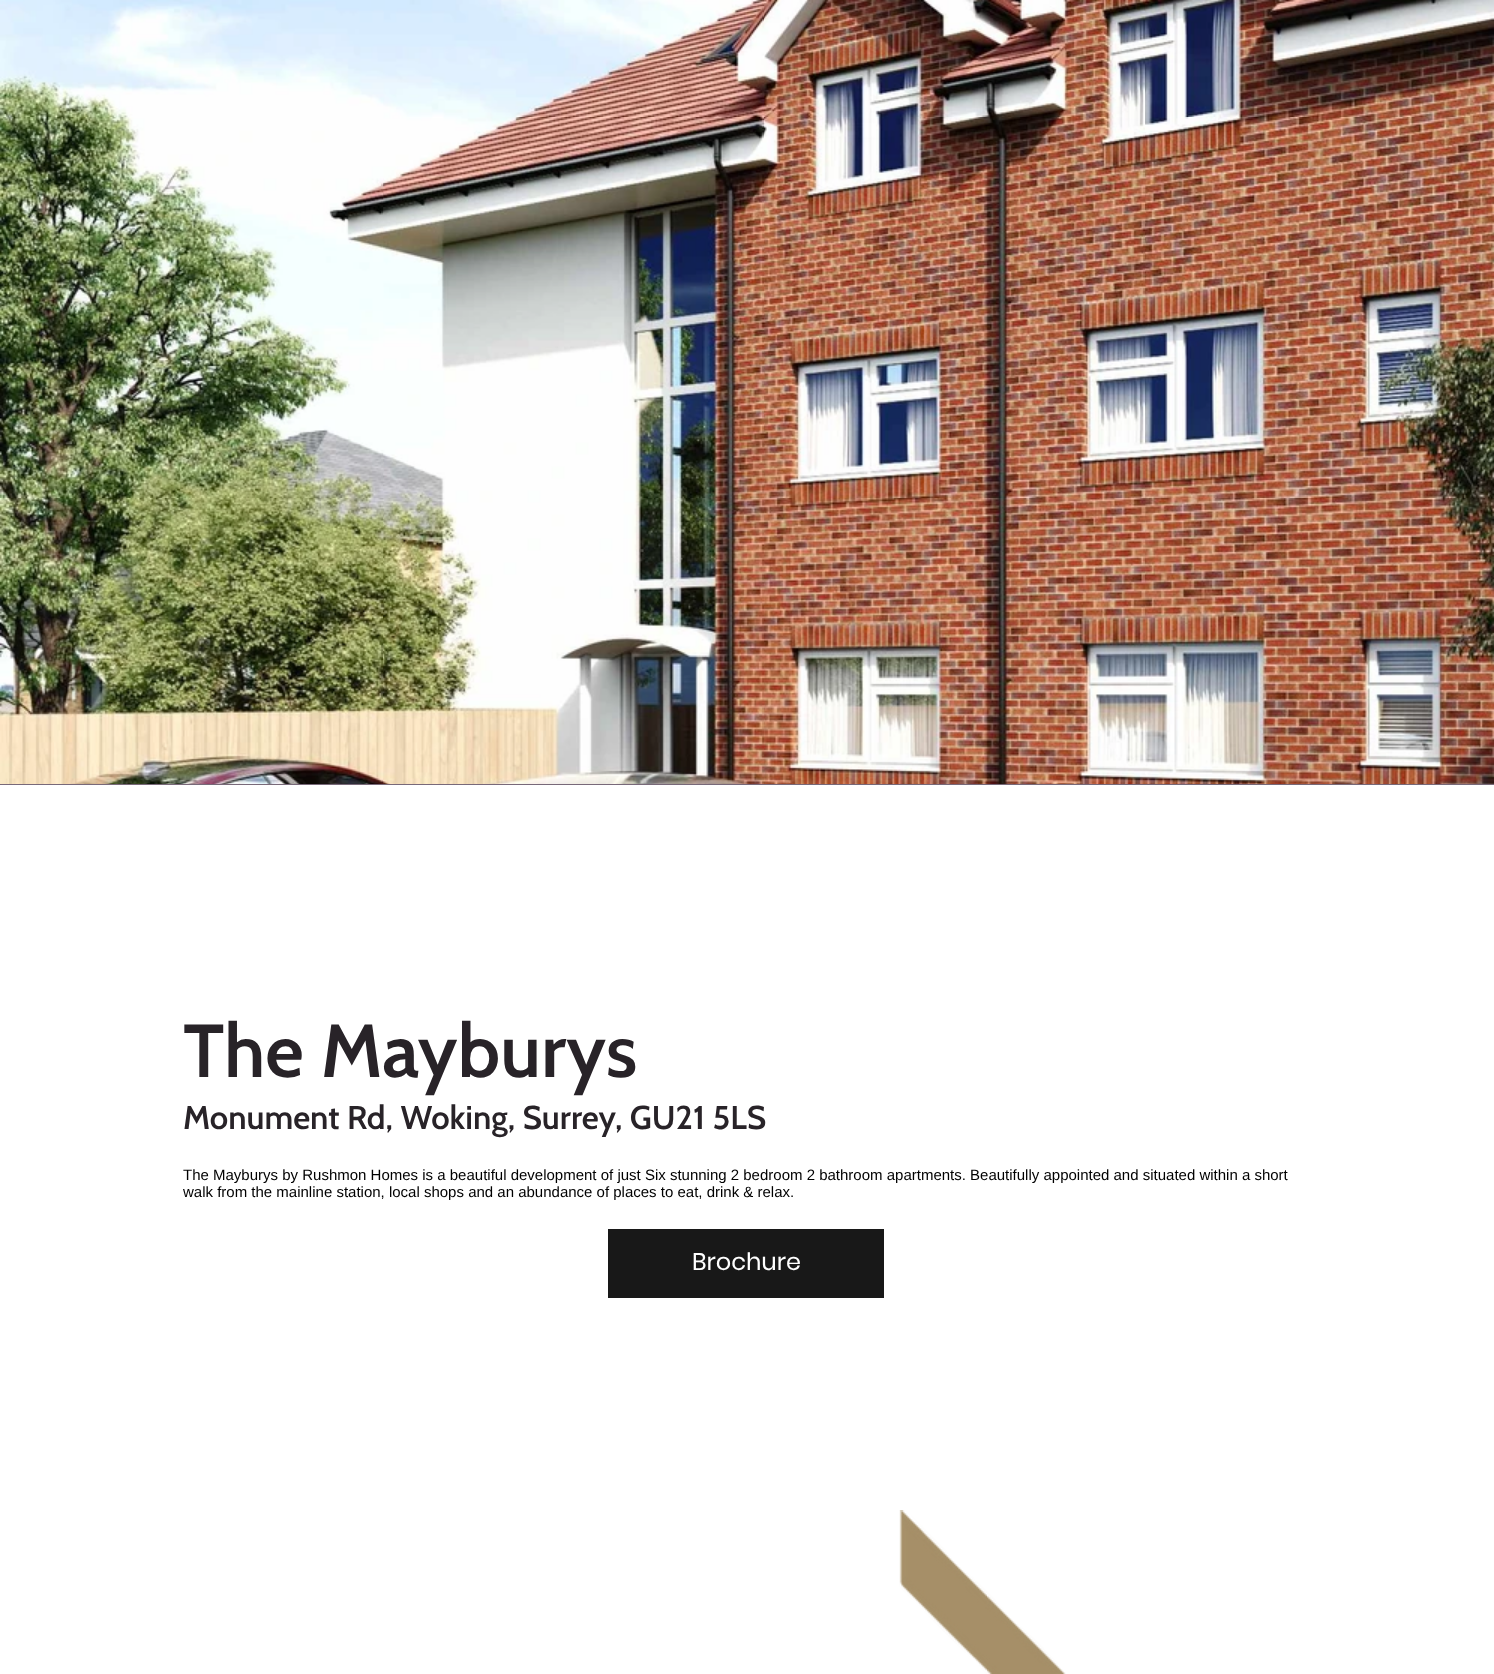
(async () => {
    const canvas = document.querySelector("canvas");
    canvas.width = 1494;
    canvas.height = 1674;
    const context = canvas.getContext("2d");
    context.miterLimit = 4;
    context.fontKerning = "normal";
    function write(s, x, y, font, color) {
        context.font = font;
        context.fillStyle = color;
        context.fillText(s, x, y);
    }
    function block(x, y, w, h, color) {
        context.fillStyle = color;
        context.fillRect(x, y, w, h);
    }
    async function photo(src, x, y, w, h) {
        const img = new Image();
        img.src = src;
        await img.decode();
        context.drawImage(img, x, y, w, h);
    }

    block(0, 0, 1494, 1674, "rgb(255, 255, 255)");
    block(0, 784, 1494, 1, "rgb(120, 105, 121)");
    await photo("media/1.png", 0, 0, 1494, 784);
    write("The Mayburys", 183, 1077, "600 75px Cabin", "rgb(40, 35, 40)");
    write("Monument Rd, Woking, Surrey, GU21 5LS", 183, 1129, "600 33px Cabin", "rgb(40, 35, 40)");
    write("The Mayburys by Rushmon Homes is a beautiful development of just Six stunning 2 bedroom 2 bathroom apartments. Beautifully appointed and situated within a short", 183, 1180, "15px Liberation Sans", "rgb(0, 0, 0)");
    write("walk from the mainline station, local shops and an abundance of places to eat, drink & relax.", 183, 1197, "15px Liberation Sans", "rgb(0, 0, 0)");
    block(608, 1229, 276, 69, "rgb(24, 24, 24)");
    write("Brochure", 692, 1270, "24px Poppins", "rgb(255, 255, 255)");
    await photo("media/2.png", 899, 1510, 167, 164);
})();
